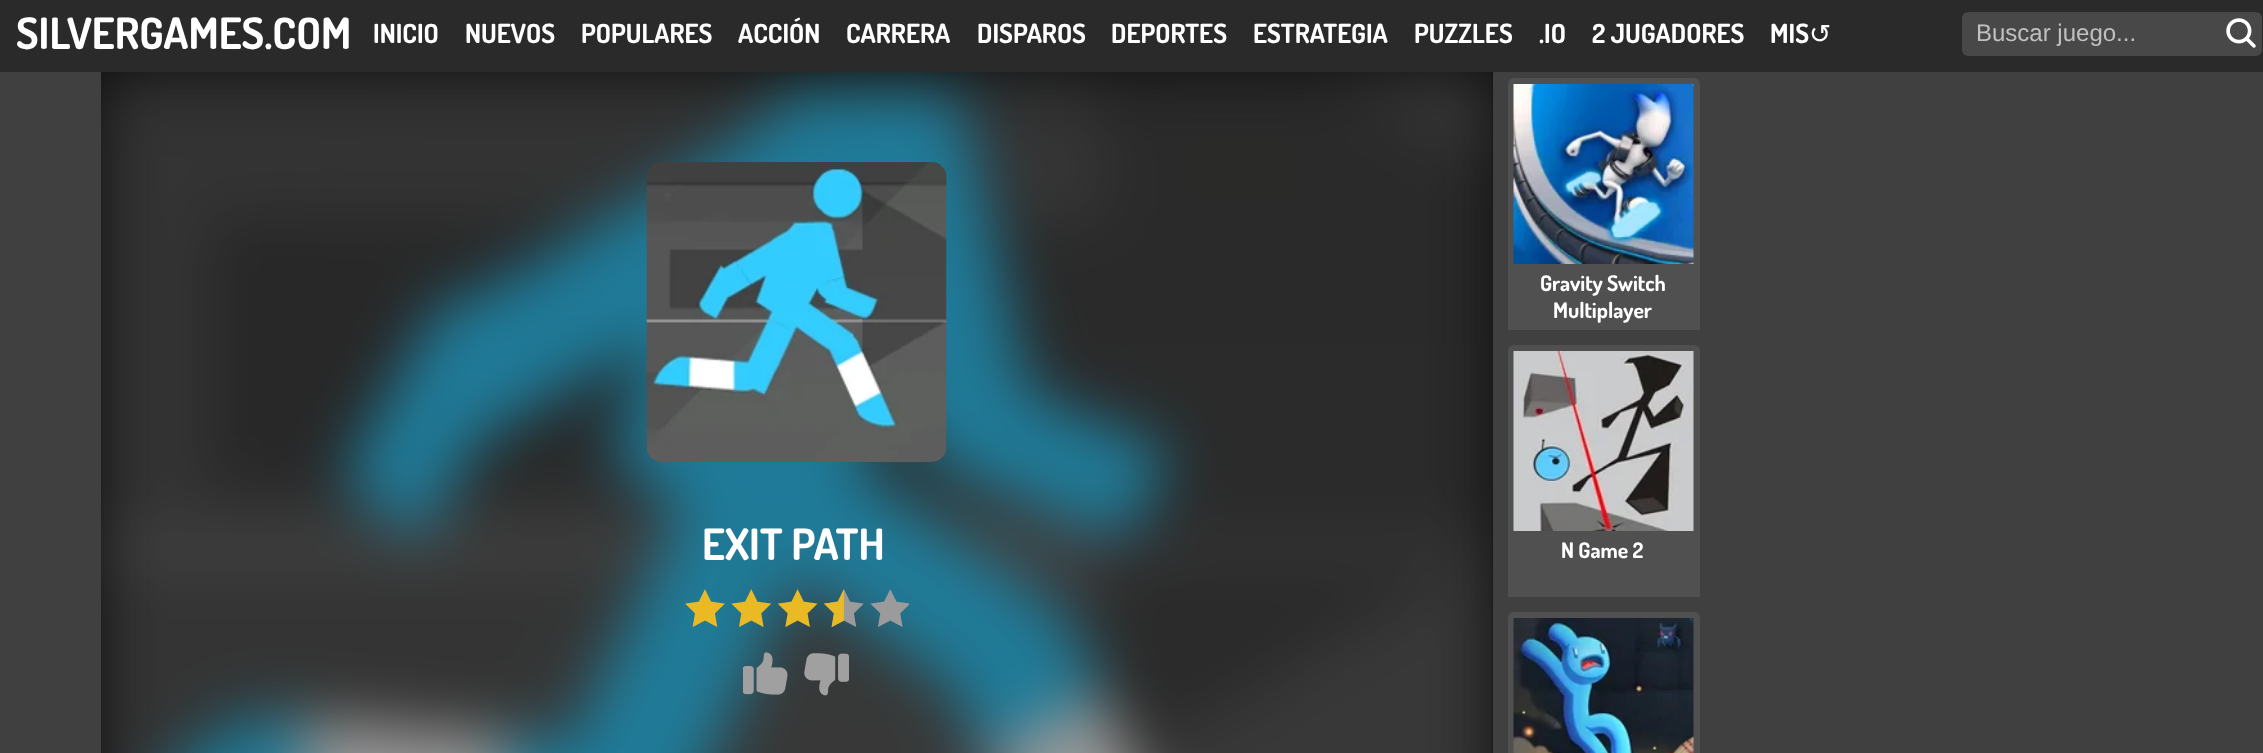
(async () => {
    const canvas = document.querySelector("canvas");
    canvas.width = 2263;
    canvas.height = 753;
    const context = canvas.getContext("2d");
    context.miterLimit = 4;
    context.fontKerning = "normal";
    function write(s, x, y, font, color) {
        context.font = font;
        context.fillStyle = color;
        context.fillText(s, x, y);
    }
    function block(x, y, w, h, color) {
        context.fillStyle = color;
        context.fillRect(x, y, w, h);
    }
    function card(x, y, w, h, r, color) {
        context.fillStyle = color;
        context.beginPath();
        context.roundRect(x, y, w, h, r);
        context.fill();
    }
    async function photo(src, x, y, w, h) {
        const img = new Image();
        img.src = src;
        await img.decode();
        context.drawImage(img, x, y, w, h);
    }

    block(0, 0, 2263, 753, "rgb(42, 42, 42)");
    write("SILVERGAMES.COM", 16, 49, "bold 43.25px Dosis", "rgb(255, 255, 255)");
    write("INICIO", 373, 43, "bold 26.5px Dosis", "rgb(255, 255, 255)");
    write("NUEVOS", 465, 43, "bold 26.5px Dosis", "rgb(255, 255, 255)");
    write("POPULARES", 581, 43, "bold 26.5px Dosis", "rgb(255, 255, 255)");
    write("ACCIÓN", 738, 43, "bold 26.5px Dosis", "rgb(255, 255, 255)");
    write("CARRERA", 846, 43, "bold 26.5px Dosis", "rgb(255, 255, 255)");
    write("DISPAROS", 977, 43, "bold 26.5px Dosis", "rgb(255, 255, 255)");
    write("DEPORTES", 1111, 43, "bold 26.5px Dosis", "rgb(255, 255, 255)");
    write("ESTRATEGIA", 1253, 43, "bold 26.5px Dosis", "rgb(255, 255, 255)");
    write("PUZZLES", 1414, 43, "bold 26.5px Dosis", "rgb(255, 255, 255)");
    write(".IO", 1539, 43, "bold 26.5px Dosis", "rgb(255, 255, 255)");
    write("2 JUGADORES", 1592, 43, "bold 26.5px Dosis", "rgb(255, 255, 255)");
    write("MIS", 1770, 43, "bold 26.5px Dosis", "rgb(255, 255, 255)");
    write("↺", 1809, 43, "26.5px DejaVu Sans", "rgb(255, 255, 255)");
    card(1962, 12, 300, 44, 6, "rgb(72, 72, 72)");
    write("Buscar juego...", 1976, 41, "24px Liberation Sans", "rgb(192, 192, 192)");
    await photo("media/1.png", 2226, 18, 30, 30);
    block(0, 72, 2263, 681, "rgb(64, 64, 64)");
    block(101, 72, 1392, 681, "rgb(16, 16, 16)");
    await photo("media/2.png", 101, 72, 1392, 681);
    await photo("media/3.png", 646, 162, 301, 300);
    write("EXIT PATH", 702, 560, "bold 43.25px Dosis", "rgb(255, 255, 255)");
    await photo("media/4.png", 685, 589, 224, 38);
    await photo("media/5.png", 743, 652, 45, 43);
    await photo("media/6.png", 804, 653, 45, 43);
    context.fillStyle = "rgb(80, 80, 80)";
    context.beginPath();
    context.roundRect(1508, 78, 192, 252, [6, 6, 0, 0]);
    context.fill();
    await photo("media/7.png", 1513, 84, 181, 180);
    write("Gravity Switch", 1540, 291, "bold 21.5px Dosis", "rgb(255, 255, 255)");
    write("Multiplayer", 1553, 318, "bold 21.5px Dosis", "rgb(255, 255, 255)");
    context.fillStyle = "rgb(80, 80, 80)";
    context.beginPath();
    context.roundRect(1508, 345, 192, 252, [6, 6, 0, 0]);
    context.fill();
    await photo("media/8.png", 1513, 351, 181, 180);
    write("N Game 2", 1561, 558, "bold 21.5px Dosis", "rgb(255, 255, 255)");
    context.fillStyle = "rgb(80, 80, 80)";
    context.beginPath();
    context.moveTo(1514, 612);
    context.lineTo(1694, 612);
    context.bezierCurveTo(1697.5, 612, 1700, 614.5, 1700, 618);
    context.lineTo(1700, 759);
    context.lineTo(1508, 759);
    context.lineTo(1508, 618);
    context.bezierCurveTo(1508, 614.5, 1510.5, 612, 1514, 612);
    context.closePath();
    context.fill();
    await photo("media/9.png", 1513, 618, 181, 135);
})();
